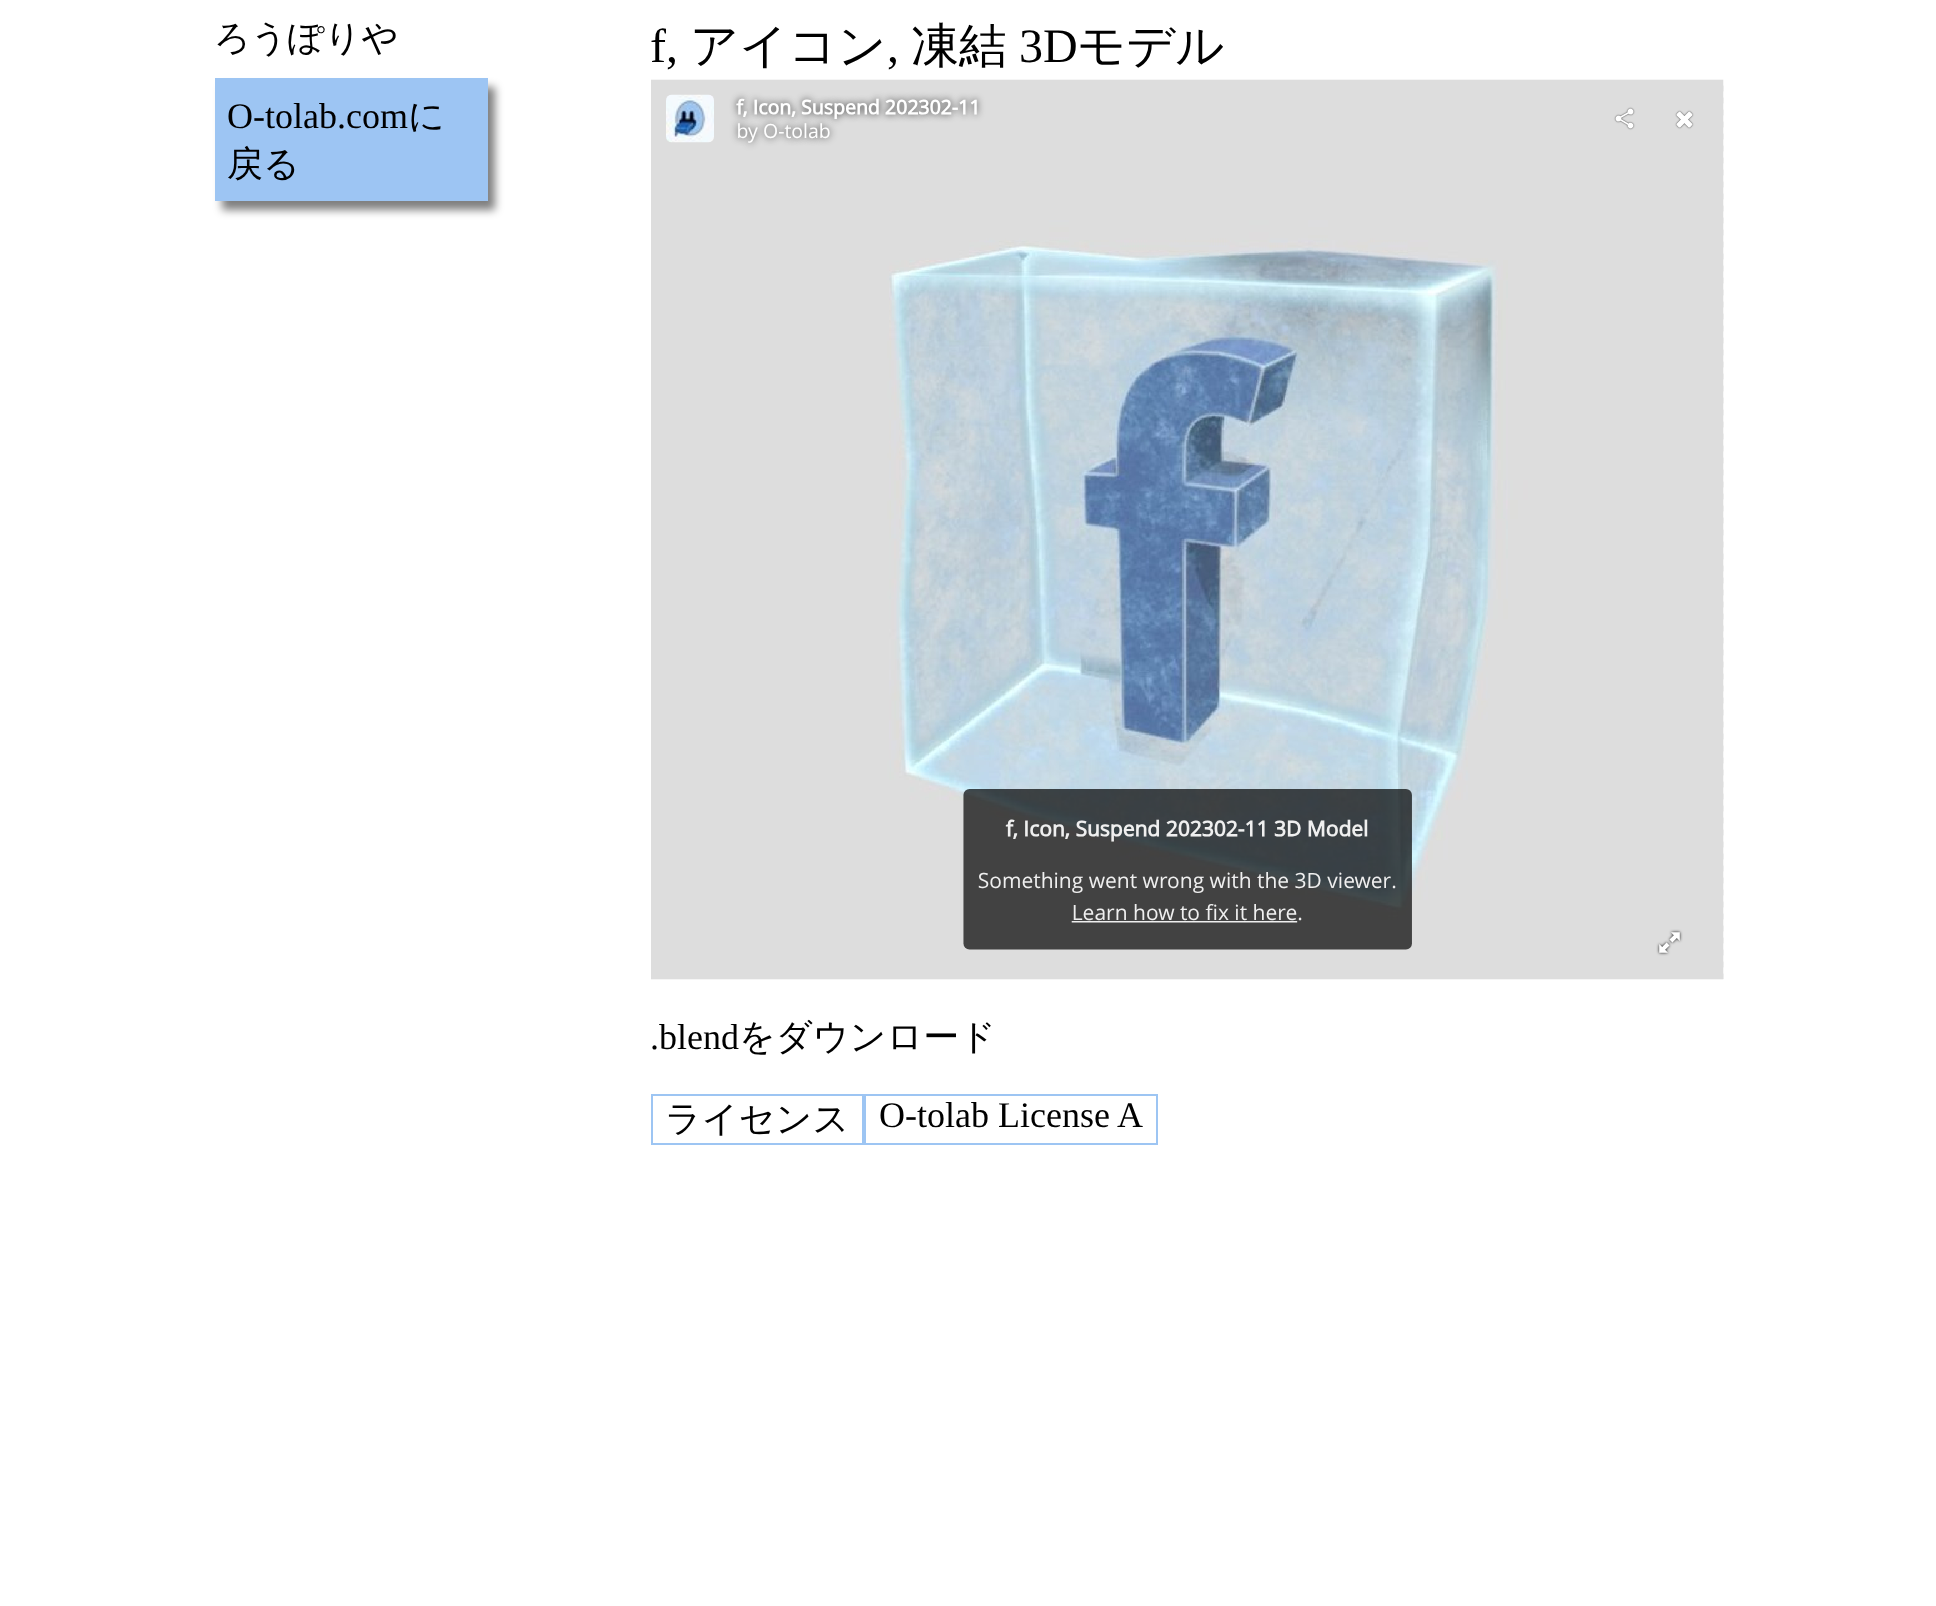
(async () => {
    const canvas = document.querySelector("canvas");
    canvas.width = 1936;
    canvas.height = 1606;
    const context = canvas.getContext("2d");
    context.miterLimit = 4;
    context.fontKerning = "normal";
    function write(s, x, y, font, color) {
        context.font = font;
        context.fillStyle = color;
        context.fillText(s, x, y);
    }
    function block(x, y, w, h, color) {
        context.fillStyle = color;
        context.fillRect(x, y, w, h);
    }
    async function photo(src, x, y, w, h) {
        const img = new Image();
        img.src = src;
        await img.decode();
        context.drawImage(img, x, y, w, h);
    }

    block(0, 0, 1936, 1606, "rgb(255, 255, 255)");
    write("ろうぽりや", 214, 50, "500 36px WenQuanYi Zen Hei", "rgb(0, 0, 0)");
    context.fillStyle = "rgba(0, 0, 0, 0.5)";
    context.filter = "blur(4.5px)";
    context.beginPath();
    context.rect(222, 87, 273, 123);
    context.fill();
    context.filter = "none";
    block(215, 78, 273, 123, "rgb(157, 197, 243)");
    write("O-tolab.com", 227, 128, "36px Liberation Serif", "rgb(0, 0, 0)");
    write("に", 408, 128, "500 36px WenQuanYi Zen Hei", "rgb(0, 0, 0)");
    write("戻る", 227, 176, "500 36px WenQuanYi Zen Hei", "rgb(0, 0, 0)");
    write("f,", 650, 62, "48px Liberation Serif", "rgb(0, 0, 0)");
    write("アイコン", 690, 62, "500 48px WenQuanYi Zen Hei", "rgb(0, 0, 0)");
    write(",", 887, 62, "48px Liberation Serif", "rgb(0, 0, 0)");
    write("凍結", 911, 62, "500 48px WenQuanYi Zen Hei", "rgb(0, 0, 0)");
    write("3D", 1019, 62, "48px Liberation Serif", "rgb(0, 0, 0)");
    write("モデル", 1077, 62, "500 48px WenQuanYi Zen Hei", "rgb(0, 0, 0)");
    await photo("media/1.png", 651, 79, 1073, 901);
    write(".blend", 650, 1049, "36px Liberation Serif", "rgb(0, 0, 0)");
    write("をダウンロード", 739, 1049, "500 36px WenQuanYi Zen Hei", "rgb(0, 0, 0)");
    context.strokeStyle = "rgb(157, 197, 243)";
    context.lineWidth = 2;
    context.strokeRect(652, 1095, 211, 49);
    write("ライセンス", 665, 1131, "500 36px WenQuanYi Zen Hei", "rgb(0, 0, 0)");
    context.strokeRect(865, 1095, 292, 49);
    write("O-tolab License A", 879, 1127, "36px Liberation Serif", "rgb(0, 0, 0)");
})();
